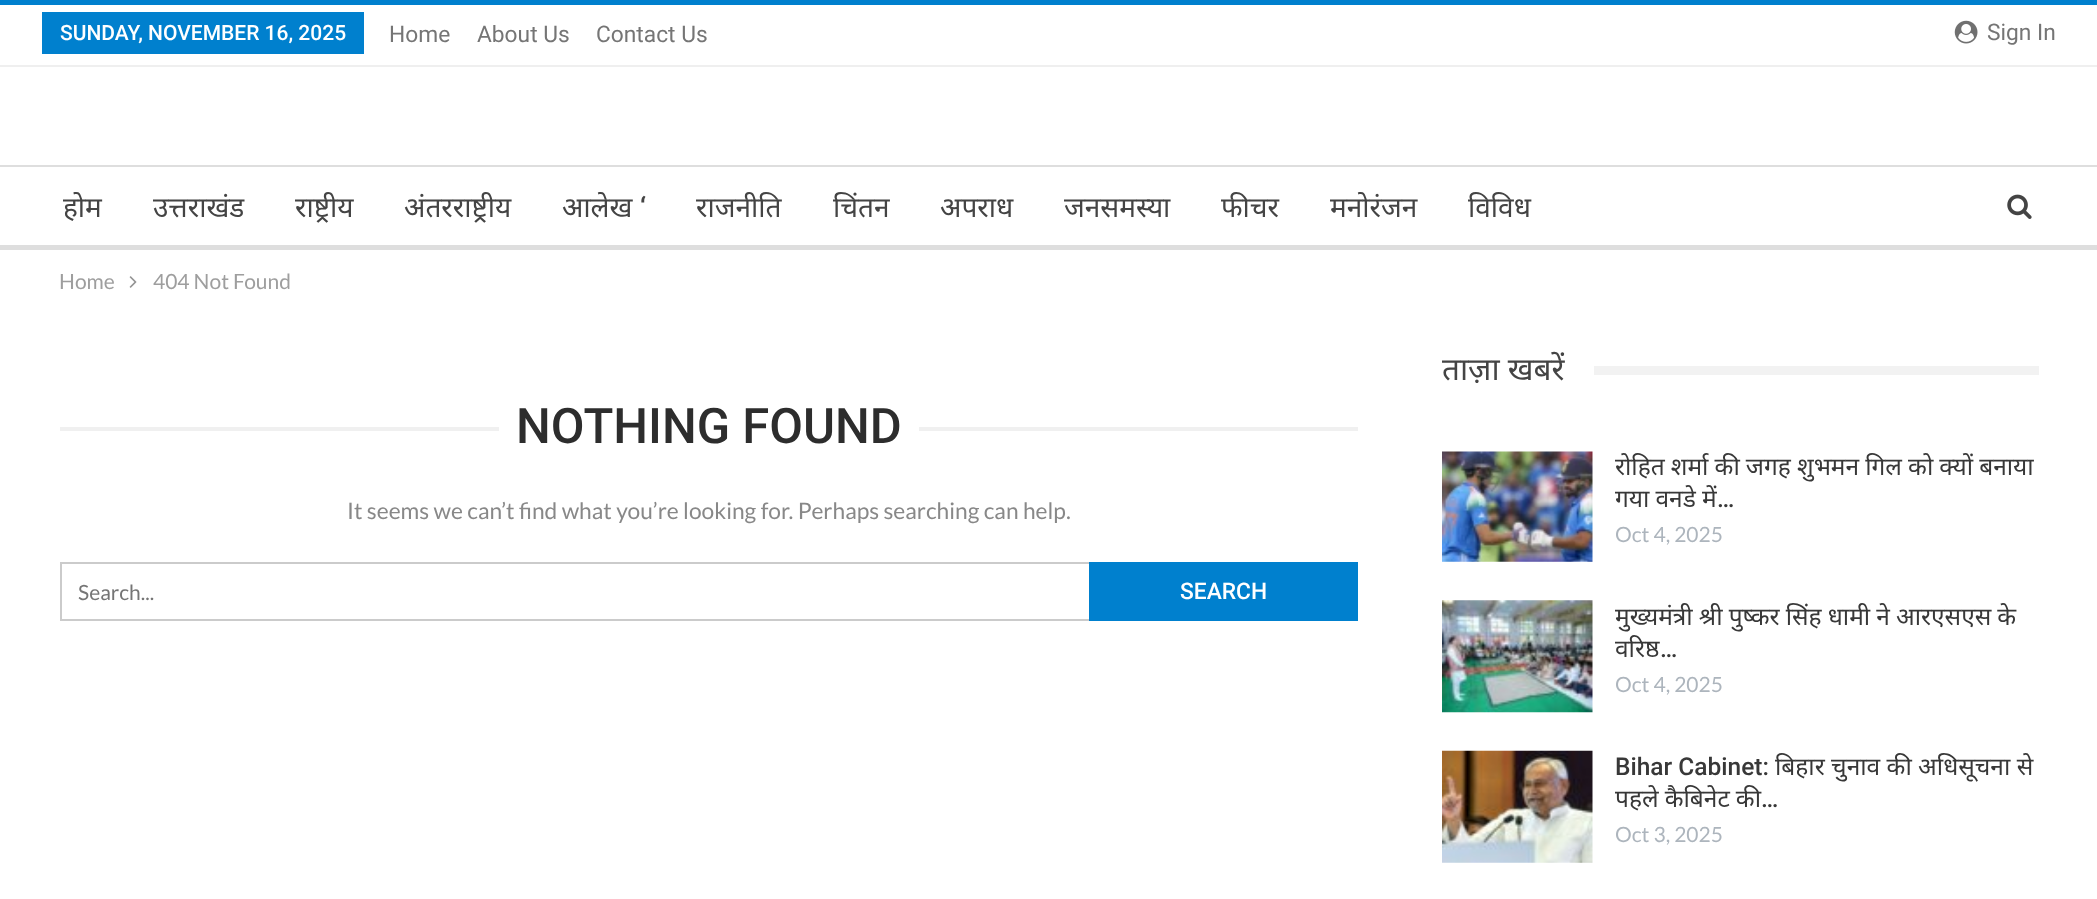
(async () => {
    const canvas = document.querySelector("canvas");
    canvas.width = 2097;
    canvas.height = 899;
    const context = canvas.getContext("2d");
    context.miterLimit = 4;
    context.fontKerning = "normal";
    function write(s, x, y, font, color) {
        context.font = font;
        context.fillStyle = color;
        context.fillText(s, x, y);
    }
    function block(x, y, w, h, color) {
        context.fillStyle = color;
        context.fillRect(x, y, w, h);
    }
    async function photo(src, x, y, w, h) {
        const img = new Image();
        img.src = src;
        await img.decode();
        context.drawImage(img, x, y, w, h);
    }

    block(0, 0, 2097, 899, "rgb(255, 255, 255)");
    block(0, 0, 2097, 5, "rgb(0, 128, 206)");
    block(0, 65, 2097, 2, "rgb(239, 239, 239)");
    block(42, 12, 322, 42, "rgb(0, 128, 206)");
    write("SUNDAY, NOVEMBER 16, 2025", 60, 40, "500 21px Roboto", "rgb(255, 255, 255)");
    write("Home", 389, 42, "22.75px Roboto", "rgb(117, 117, 117)");
    write("About Us", 477, 42, "22.75px Roboto", "rgb(117, 117, 117)");
    write("Contact Us", 596, 42, "22.75px Roboto", "rgb(117, 117, 117)");
    await photo("media/1.png", 1954, 20, 24, 24);
    write("Sign In", 1987, 40, "22.75px Roboto", "rgb(117, 117, 117)");
    block(0, 165, 2097, 2, "rgb(222, 222, 222)");
    block(0, 245, 2097, 5, "rgb(222, 222, 222)");
    write("होम", 63, 217, "28px Noto Sans", "rgb(68, 68, 68)");
    write("उत्तराखंड", 153, 217, "28px Noto Sans", "rgb(68, 68, 68)");
    write("राष्ट्रीय", 295, 217, "28px Noto Sans", "rgb(68, 68, 68)");
    write("अंतरराष्ट्रीय", 404, 217, "28px Noto Sans", "rgb(68, 68, 68)");
    write("आलेख", 562, 217, "28px Noto Sans", "rgb(68, 68, 68)");
    write("‘", 640, 217, "500 28px Roboto", "rgb(68, 68, 68)");
    write("राजनीति", 696, 217, "28px Noto Sans", "rgb(68, 68, 68)");
    write("चिंतन", 833, 217, "28px Noto Sans", "rgb(68, 68, 68)");
    write("अपराध", 940, 217, "28px Noto Sans", "rgb(68, 68, 68)");
    write("जनसमस्या", 1064, 217, "28px Noto Sans", "rgb(68, 68, 68)");
    write("फीचर", 1221, 217, "28px Noto Sans", "rgb(68, 68, 68)");
    write("मनोरंजन", 1330, 217, "28px Noto Sans", "rgb(68, 68, 68)");
    write("विविध", 1468, 217, "28px Noto Sans", "rgb(68, 68, 68)");
    await photo("media/2.png", 2007, 194, 25, 25);
    write("Home", 59, 289, "21px Lato", "rgb(158, 158, 158)");
    await photo("media/3.png", 129, 276, 8, 12);
    write("404 Not Found", 153, 289, "21px Lato", "rgb(158, 158, 158)");
    block(60, 427, 1298, 4, "rgb(240, 240, 240)");
    block(499, 427, 420, 4, "rgb(255, 255, 255)");
    write("NOTHING FOUND", 516, 443, "500 49px Roboto", "rgb(45, 45, 45)");
    write("It seems we can’t find what you’re looking for. Perhaps searching can help.", 347, 519, "22.75px Lato", "rgb(136, 136, 136)");
    context.strokeStyle = "rgb(203, 203, 203)";
    context.lineWidth = 2;
    context.strokeRect(61, 563, 1296, 57);
    write("Search...", 78, 600, "21px Lato", "rgb(117, 117, 117)");
    block(1089, 562, 269, 59, "rgb(0, 128, 206)");
    write("SEARCH", 1180, 599, "500 22.75px Roboto", "rgb(255, 255, 255)");
    write("ताज़ा खबरें", 1442, 380, "31.5px Noto Sans", "rgb(68, 68, 68)");
    block(1594, 366, 445, 9, "rgb(242, 242, 242)");
    await photo("media/4.png", 1442, 451, 151, 111);
    context.wordSpacing = "-0.25px";
    write("रोहित शर्मा की जगह शुभमन गिल को क्यों बनाया", 1615, 475, "24.5px Noto Sans", "rgb(56, 56, 56)");
    write("गया वनडे में", 1615, 507, "24.5px Noto Sans", "rgb(56, 56, 56)");
    context.wordSpacing = "0px";
    write("…", 1717, 507, "500 24.5px Roboto", "rgb(56, 56, 56)");
    write("Oct 4, 2025", 1615, 542, "21px Lato", "rgb(173, 181, 189)");
    await photo("media/5.png", 1442, 600, 151, 113);
    context.wordSpacing = "-0.25px";
    write("मुख्यमंत्री श्री पुष्कर सिंह धामी ने आरएसएस के", 1615, 625, "24.5px Noto Sans", "rgb(56, 56, 56)");
    context.wordSpacing = "0px";
    write("वरिष्ठ", 1615, 657, "24.5px Noto Sans", "rgb(56, 56, 56)");
    write("…", 1660, 657, "500 24.5px Roboto", "rgb(56, 56, 56)");
    write("Oct 4, 2025", 1615, 692, "21px Lato", "rgb(173, 181, 189)");
    await photo("media/6.png", 1442, 750, 151, 113);
    write("Bihar Cabinet:", 1615, 775, "500 24.5px Roboto", "rgb(56, 56, 56)");
    write("बिहार चुनाव की अधिसूचना से", 1775, 775, "24.5px Noto Sans", "rgb(56, 56, 56)");
    context.wordSpacing = "-0.25px";
    write("पहले कैबिनेट की", 1615, 807, "24.5px Noto Sans", "rgb(56, 56, 56)");
    context.wordSpacing = "0px";
    write("…", 1761, 807, "500 24.5px Roboto", "rgb(56, 56, 56)");
    write("Oct 3, 2025", 1615, 842, "21px Lato", "rgb(173, 181, 189)");
})();
